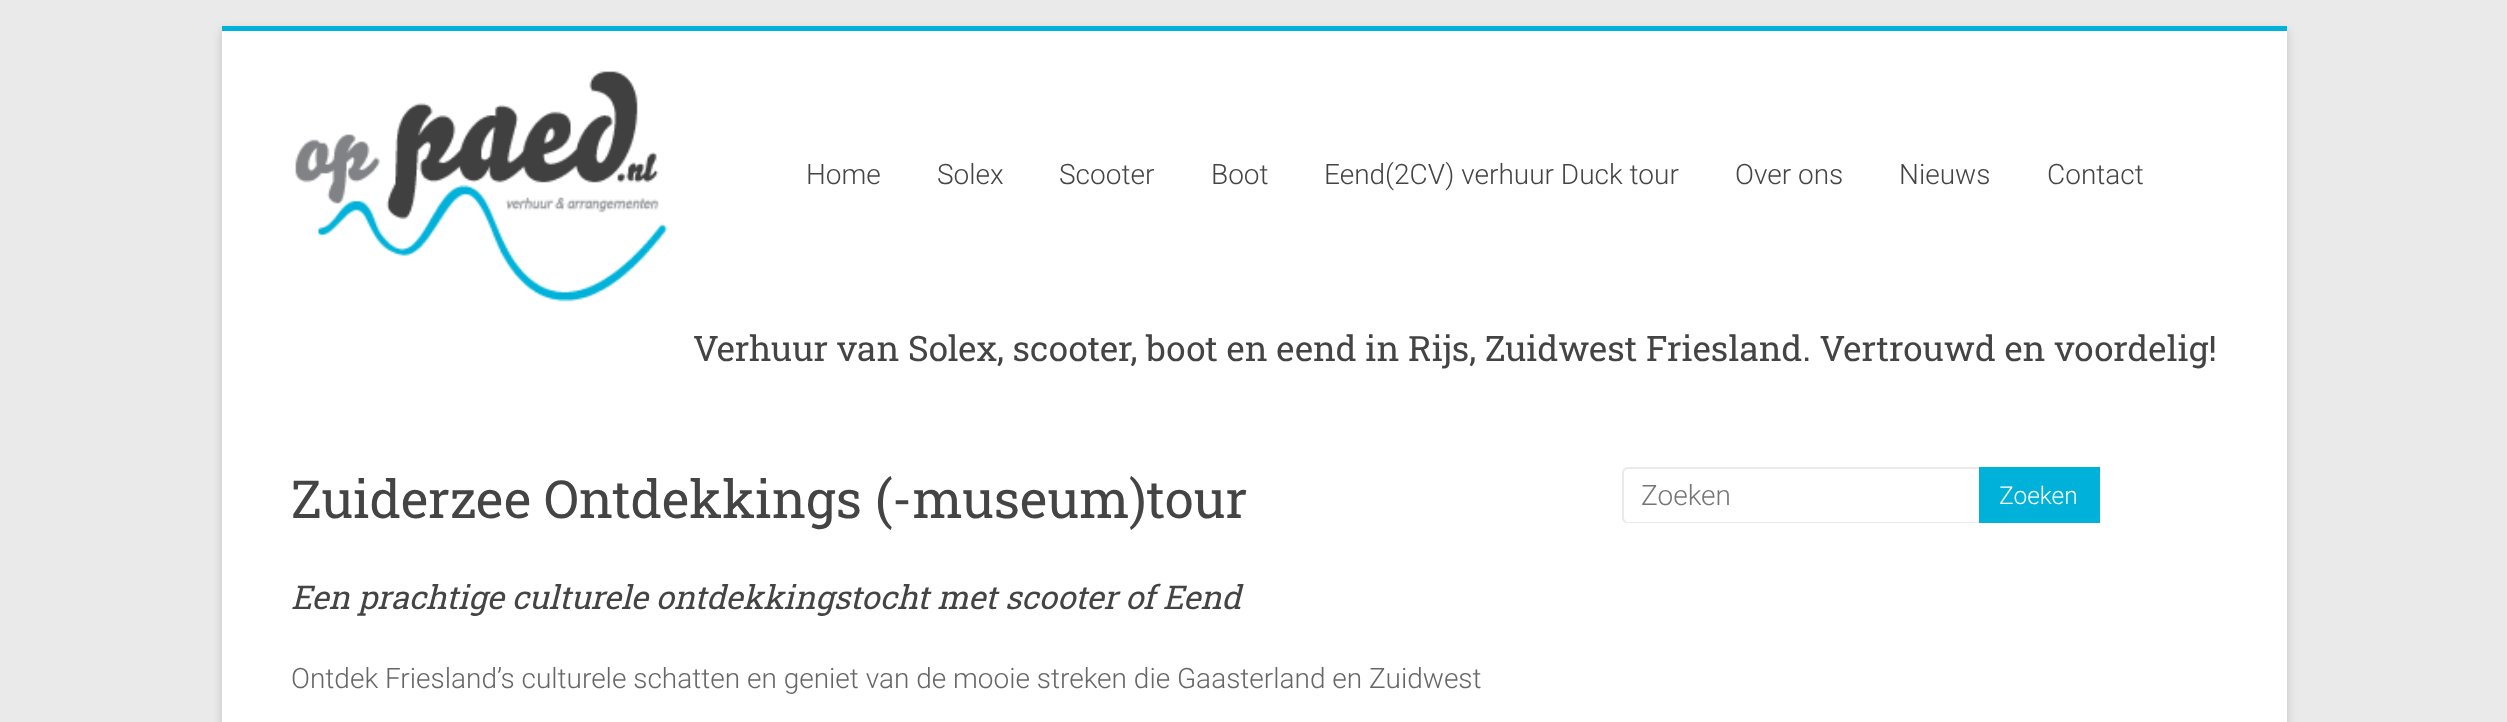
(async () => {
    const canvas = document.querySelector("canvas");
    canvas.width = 2507;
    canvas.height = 722;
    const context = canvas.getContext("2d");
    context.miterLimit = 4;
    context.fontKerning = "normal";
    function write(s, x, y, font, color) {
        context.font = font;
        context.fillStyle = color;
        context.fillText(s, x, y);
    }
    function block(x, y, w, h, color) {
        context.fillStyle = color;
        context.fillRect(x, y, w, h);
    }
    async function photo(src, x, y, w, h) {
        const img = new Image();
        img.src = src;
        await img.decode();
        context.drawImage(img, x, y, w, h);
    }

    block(0, 0, 2507, 722, "rgb(234, 234, 234)");
    context.fillStyle = "rgba(100, 100, 100, 0.3)";
    context.filter = "blur(5px)";
    context.beginPath();
    context.rect(222, 30, 2065, 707);
    context.fill();
    context.filter = "none";
    block(222, 31, 2065, 691, "rgb(255, 255, 255)");
    block(222, 26, 2065, 5, "rgb(0, 178, 217)");
    await photo("media/1.png", 295, 71, 373, 231);
    write("Home", 806, 184, "300 28px Roboto", "rgb(68, 68, 68)");
    write("Solex", 937, 184, "300 28px Roboto", "rgb(68, 68, 68)");
    write("Scooter", 1059, 184, "300 28px Roboto", "rgb(68, 68, 68)");
    write("Boot", 1211, 184, "300 28px Roboto", "rgb(68, 68, 68)");
    write("Eend(2CV) verhuur Duck tour", 1324, 184, "300 28px Roboto", "rgb(68, 68, 68)");
    write("Over ons", 1735, 184, "300 28px Roboto", "rgb(68, 68, 68)");
    write("Nieuws", 1899, 184, "300 28px Roboto", "rgb(68, 68, 68)");
    write("Contact", 2047, 184, "300 28px Roboto", "rgb(68, 68, 68)");
    write("Verhuur van Solex, scooter, boot en eend in Rijs, Zuidwest Friesland. Vertrouwd en voordelig!", 693, 361, "35px Roboto Slab", "rgb(68, 68, 68)");
    write("Zuiderzee Ontdekkings (-museum)tour", 291, 518, "52.5px Roboto Slab", "rgb(68, 68, 68)");
    write("Een prachtige culturele ontdekkingstocht met scooter of Eend", 291, 609, "italic 32.7px Roboto Slab", "rgb(68, 68, 68)");
    write("Ontdek Friesland’s culturele schatten en geniet van de mooie streken die Gaasterland en Zuidwest", 291, 688, "300 28px Roboto", "rgb(102, 102, 102)");
    context.fillStyle = "rgb(234, 234, 234)";
    context.beginPath();
    context.moveTo(1628, 467);
    context.lineTo(1979, 467);
    context.lineTo(1979, 523);
    context.lineTo(1628, 523);
    context.bezierCurveTo(1625, 523, 1622, 521, 1622, 518);
    context.lineTo(1622, 472);
    context.bezierCurveTo(1622, 470, 1625, 467, 1628, 467);
    context.closePath();
    context.moveTo(1628, 469);
    context.lineTo(1979, 469);
    context.lineTo(1979, 522);
    context.lineTo(1628, 522);
    context.bezierCurveTo(1626, 522, 1624, 520, 1624, 518);
    context.lineTo(1624, 472);
    context.bezierCurveTo(1624, 471, 1626, 469, 1628, 469);
    context.closePath();
    context.fill("evenodd");
    write("Zoeken", 1641, 505, "300 28px Roboto", "rgb(117, 117, 117)");
    block(1979, 467, 121, 56, "rgb(0, 178, 217)");
    write("Zoeken", 1999, 504, "300 24.5px Roboto", "rgb(255, 255, 255)");
})();
